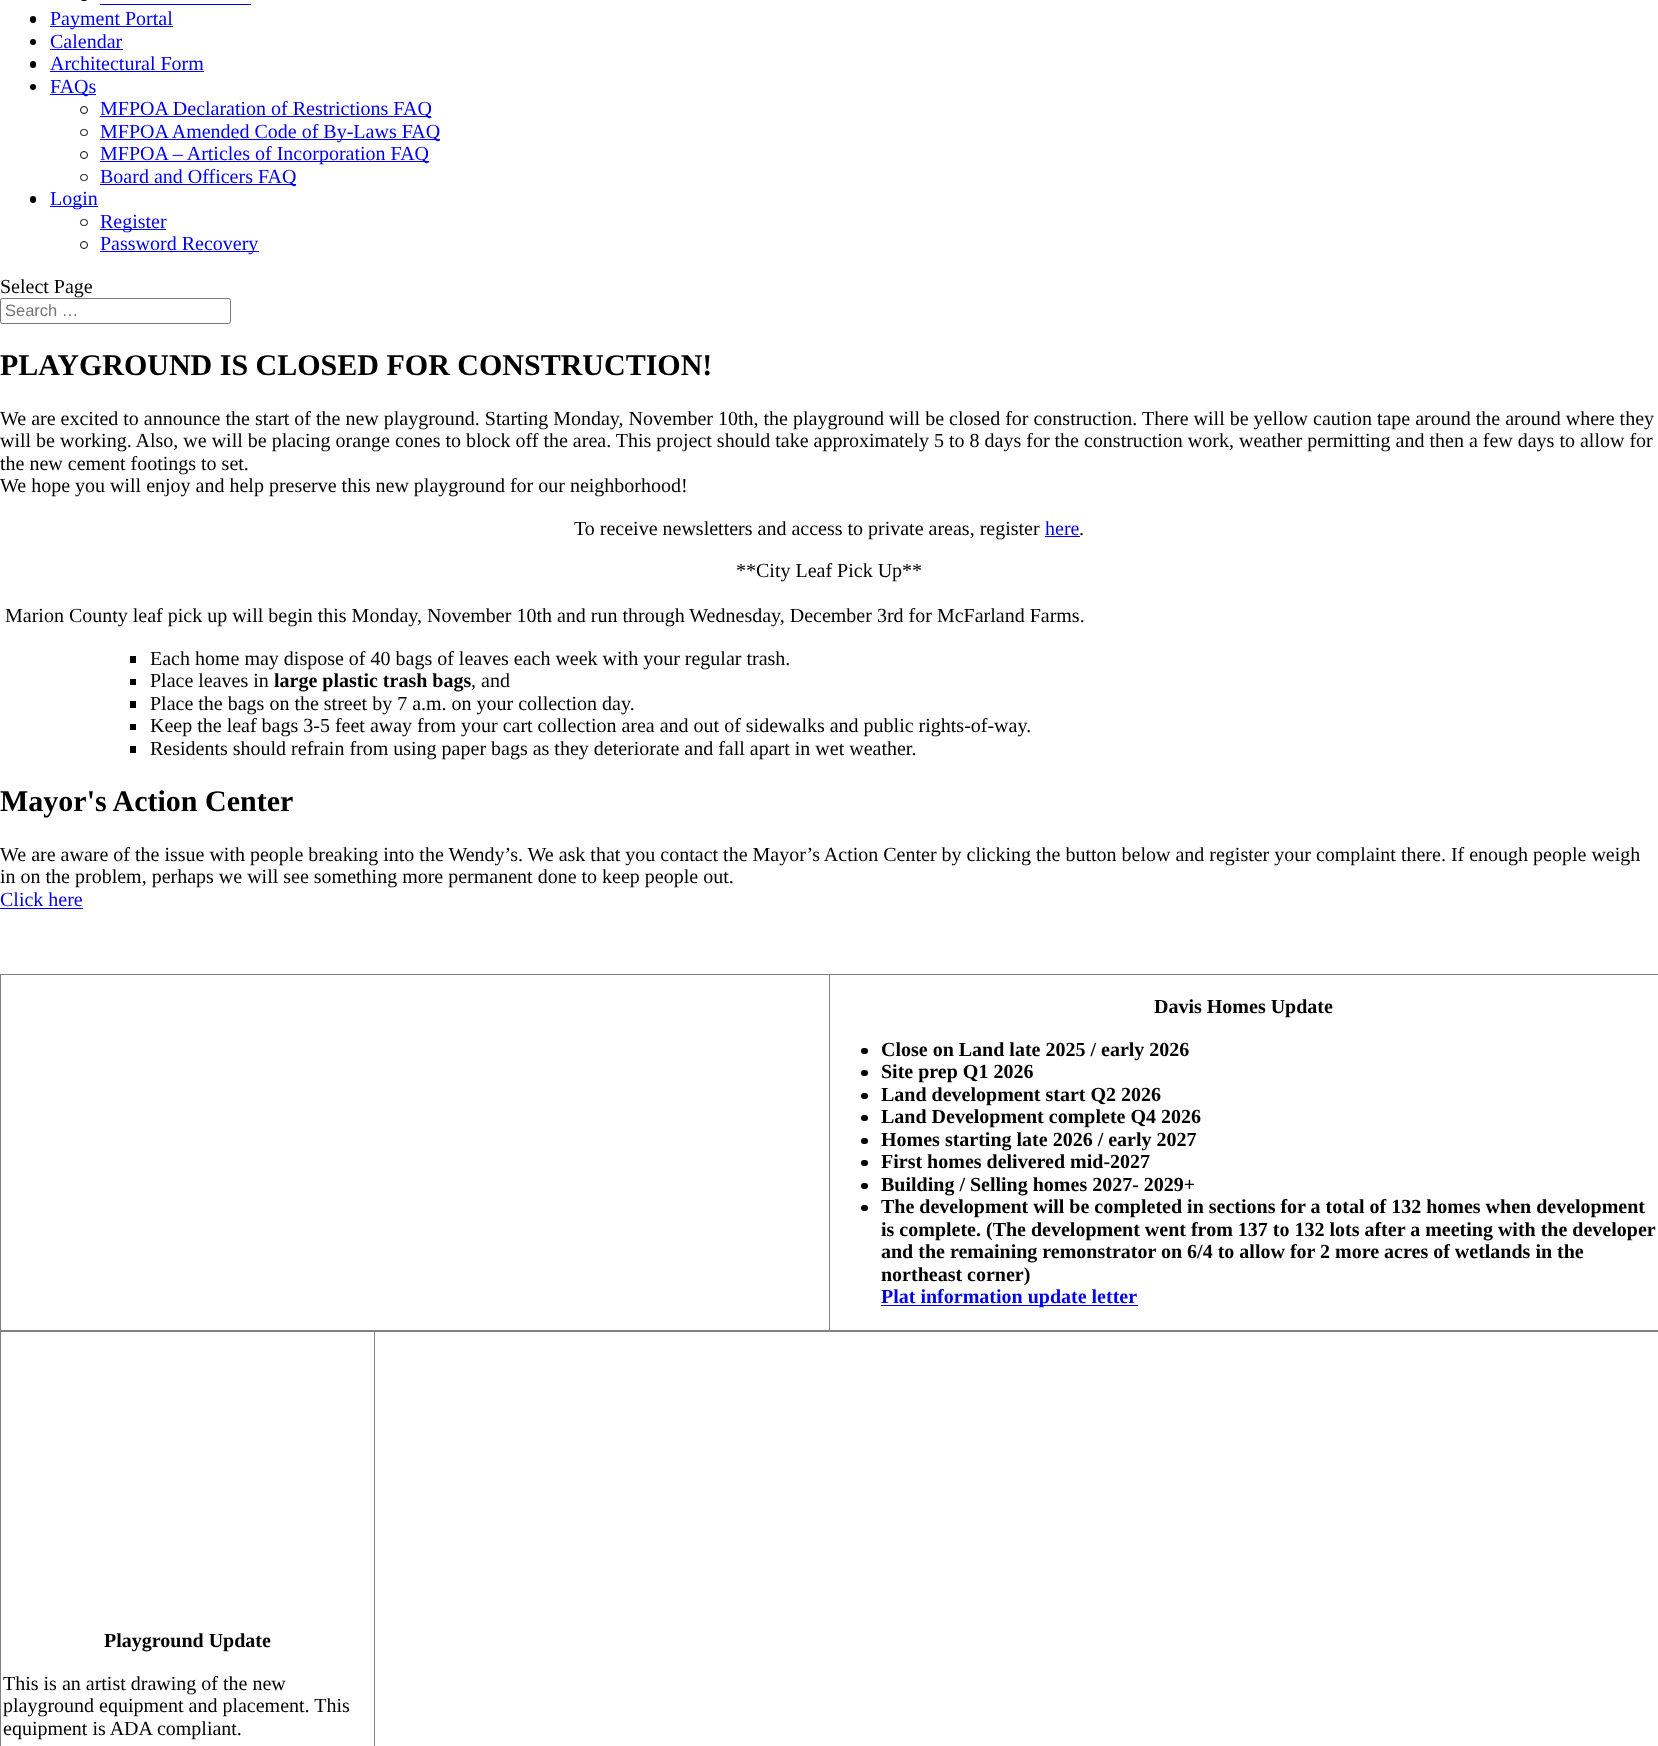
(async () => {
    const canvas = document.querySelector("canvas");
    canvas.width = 1658;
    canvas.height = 1746;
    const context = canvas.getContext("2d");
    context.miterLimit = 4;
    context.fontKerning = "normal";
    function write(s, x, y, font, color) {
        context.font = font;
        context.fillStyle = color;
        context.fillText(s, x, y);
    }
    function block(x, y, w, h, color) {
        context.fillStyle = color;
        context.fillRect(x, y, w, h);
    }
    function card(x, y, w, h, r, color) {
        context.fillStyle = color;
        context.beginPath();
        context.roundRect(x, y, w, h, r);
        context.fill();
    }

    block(0, 0, 1658, 1746, "rgb(255, 255, 255)");
    context.beginPath();
    context.roundRect(80.5, -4.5, 7, 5, 3);
    context.strokeStyle = "rgb(0, 0, 0)";
    context.stroke();
    block(100, 4, 151, 1, "rgb(0, 0, 238)");
    card(30, 16, 6, 7, 3, "rgb(0, 0, 0)");
    block(50, 26, 123, 1, "rgb(0, 0, 238)");
    write("Payment Portal", 50, 25, "20px Liberation Serif", "rgb(0, 0, 238)");
    context.fillStyle = "rgb(0, 0, 0)";
    context.beginPath();
    context.arc(33, 42, 3, 0, Math.PI * 2);
    context.fill();
    write("Calendar", 50, 48, "20px Liberation Serif", "rgb(0, 0, 238)");
    block(50, 49, 73, 1, "rgb(0, 0, 238)");
    card(30, 61, 6, 7, 3, "rgb(0, 0, 0)");
    write("Architectural Form", 50, 70, "20px Liberation Serif", "rgb(0, 0, 238)");
    block(50, 71, 154, 1, "rgb(0, 0, 238)");
    context.fillStyle = "rgb(0, 0, 0)";
    context.beginPath();
    context.arc(33, 87, 3, 0, Math.PI * 2);
    context.fill();
    block(50, 94, 46, 1, "rgb(0, 0, 238)");
    write("FAQs", 50, 93, "20px Liberation Serif", "rgb(0, 0, 238)");
    context.beginPath();
    context.arc(84, 110, 3.5, 0, Math.PI * 2);
    context.stroke();
    block(100, 116, 331, 1, "rgb(0, 0, 238)");
    write("MFPOA Declaration of Restrictions FAQ", 100, 115, "20px Liberation Serif", "rgb(0, 0, 238)");
    context.beginPath();
    context.roundRect(80.5, 129.5, 7, 6, 3);
    context.stroke();
    block(100, 139, 340, 1, "rgb(0, 0, 238)");
    write("MFPOA Amended Code of By-Laws FAQ", 100, 138, "20px Liberation Serif", "rgb(0, 0, 238)");
    context.beginPath();
    context.arc(84, 155, 3.5, 0, Math.PI * 2);
    context.stroke();
    block(100, 161, 329, 1, "rgb(0, 0, 238)");
    write("MFPOA – Articles of Incorporation FAQ", 100, 160, "20px Liberation Serif", "rgb(0, 0, 238)");
    context.beginPath();
    context.roundRect(80.5, 174.5, 7, 6, 3);
    context.stroke();
    block(100, 184, 196, 1, "rgb(0, 0, 238)");
    write("Board and Officers FAQ", 100, 183, "20px Liberation Serif", "rgb(0, 0, 238)");
    card(30, 196, 6, 7, 3, "rgb(0, 0, 0)");
    block(50, 206, 48, 1, "rgb(0, 0, 238)");
    write("Login", 50, 205, "20px Liberation Serif", "rgb(0, 0, 238)");
    context.beginPath();
    context.roundRect(80.5, 219.5, 7, 6, 3);
    context.stroke();
    block(100, 229, 66, 1, "rgb(0, 0, 238)");
    write("Register", 100, 228, "20px Liberation Serif", "rgb(0, 0, 238)");
    context.beginPath();
    context.arc(84, 245, 3.5, 0, Math.PI * 2);
    context.stroke();
    block(100, 251, 159, 1, "rgb(0, 0, 238)");
    write("Password Recovery", 100, 250, "20px Liberation Serif", "rgb(0, 0, 238)");
    write("Select Page", 0, 293, "20px Liberation Serif", "rgb(0, 0, 0)");
    context.beginPath();
    context.roundRect(0.5, 298.5, 230, 25, 2);
    context.strokeStyle = "rgb(118, 118, 118)";
    context.stroke();
    write("Search …", 5, 316, "16.5px Liberation Sans", "rgb(117, 117, 117)");
    write("PLAYGROUND IS CLOSED FOR CONSTRUCTION!", 0, 375, "bold 30px Liberation Serif", "rgb(0, 0, 0)");
    write("We are excited to announce the start of the new playground. Starting Monday, November 10th, the playground will be closed for construction. There will be yellow caution tape around the around where they", 0, 425, "20px Liberation Serif", "rgb(0, 0, 0)");
    write("will be working. Also, we will be placing orange cones to block off the area. This project should take approximately 5 to 8 days for the construction work, weather permitting and then a few days to allow for", 0, 447, "20px Liberation Serif", "rgb(0, 0, 0)");
    write("the new cement footings to set.", 0, 470, "20px Liberation Serif", "rgb(0, 0, 0)");
    write("We hope you will enjoy and help preserve this new playground for our neighborhood!", 0, 492, "20px Liberation Serif", "rgb(0, 0, 0)");
    write("To receive newsletters and access to private areas, register", 574, 535, "20px Liberation Serif", "rgb(0, 0, 0)");
    write("here", 1045, 535, "20px Liberation Serif", "rgb(0, 0, 238)");
    block(1045, 536, 35, 1, "rgb(0, 0, 238)");
    write(".", 1079, 535, "20px Liberation Serif", "rgb(0, 0, 0)");
    write("**City Leaf Pick Up**", 736, 577, "20px Liberation Serif", "rgb(0, 0, 0)");
    write("Marion County leaf pick up will begin this Monday, November 10th and run through Wednesday, December 3rd for McFarland Farms.", 5, 622, "20px Liberation Serif", "rgb(0, 0, 0)");
    block(130, 656, 6, 7, "rgb(0, 0, 0)");
    write("Each home may dispose of 40 bags of leaves each week with your regular trash.", 150, 665, "20px Liberation Serif", "rgb(0, 0, 0)");
    block(130, 679, 6, 6, "rgb(0, 0, 0)");
    write("Place leaves in", 150, 687, "20px Liberation Serif", "rgb(0, 0, 0)");
    write("large plastic trash bags", 274, 687, "bold 20px Liberation Serif", "rgb(0, 0, 0)");
    write(", and", 471, 687, "20px Liberation Serif", "rgb(0, 0, 0)");
    block(130, 701, 6, 7, "rgb(0, 0, 0)");
    write("Place the bags on the street by 7 a.m. on your collection day.", 150, 710, "20px Liberation Serif", "rgb(0, 0, 0)");
    block(130, 724, 6, 6, "rgb(0, 0, 0)");
    write("Keep the leaf bags 3-5 feet away from your cart collection area and out of sidewalks and public rights-of-way.", 150, 732, "20px Liberation Serif", "rgb(0, 0, 0)");
    block(130, 746, 6, 7, "rgb(0, 0, 0)");
    write("Residents should refrain from using paper bags as they deteriorate and fall apart in wet weather.", 150, 755, "20px Liberation Serif", "rgb(0, 0, 0)");
    write("Mayor's Action Center", 0, 811, "bold 30px Liberation Serif", "rgb(0, 0, 0)");
    write("We are aware of the issue with people breaking into the Wendy’s. We ask that you contact the Mayor’s Action Center by clicking the button below and register your complaint there. If enough people weigh", 0, 861, "20px Liberation Serif", "rgb(0, 0, 0)");
    write("in on the problem, perhaps we will see something more permanent done to keep people out.", 0, 883, "20px Liberation Serif", "rgb(0, 0, 0)");
    write("Click here", 0, 906, "20px Liberation Serif", "rgb(0, 0, 238)");
    block(0, 908, 83, 1, "rgb(0, 0, 238)");
    block(0, 974, 1658, 1, "rgb(128, 128, 128)");
    block(0, 1330, 1658, 2, "rgb(128, 128, 128)");
    block(0, 974, 1, 772, "rgb(128, 128, 128)");
    block(829, 974, 1, 357, "rgb(128, 128, 128)");
    write("Davis Homes Update", 1154, 1013, "bold 20px Liberation Serif", "rgb(0, 0, 0)");
    card(861, 1048, 7, 6, 3, "rgb(0, 0, 0)");
    write("Close on Land late 2025 / early 2026", 881, 1056, "bold 20px Liberation Serif", "rgb(0, 0, 0)");
    card(861, 1070, 7, 6, 3, "rgb(0, 0, 0)");
    write("Site prep Q1 2026", 881, 1078, "bold 20px Liberation Serif", "rgb(0, 0, 0)");
    card(861, 1093, 7, 6, 3, "rgb(0, 0, 0)");
    write("Land development start Q2 2026", 881, 1101, "bold 20px Liberation Serif", "rgb(0, 0, 0)");
    card(861, 1115, 7, 6, 3, "rgb(0, 0, 0)");
    write("Land Development complete Q4 2026", 881, 1123, "bold 20px Liberation Serif", "rgb(0, 0, 0)");
    card(861, 1138, 7, 6, 3, "rgb(0, 0, 0)");
    write("Homes starting late 2026 / early 2027", 881, 1146, "bold 20px Liberation Serif", "rgb(0, 0, 0)");
    card(861, 1160, 7, 6, 3, "rgb(0, 0, 0)");
    write("First homes delivered mid-2027", 881, 1168, "bold 20px Liberation Serif", "rgb(0, 0, 0)");
    card(861, 1183, 7, 6, 3, "rgb(0, 0, 0)");
    write("Building / Selling homes 2027- 2029+", 881, 1191, "bold 20px Liberation Serif", "rgb(0, 0, 0)");
    card(861, 1205, 7, 6, 3, "rgb(0, 0, 0)");
    write("The development will be completed in sections for a total of 132 homes when development", 881, 1213, "bold 20px Liberation Serif", "rgb(0, 0, 0)");
    write("is complete. (The development went from 137 to 132 lots after a meeting with the developer", 881, 1236, "bold 20px Liberation Serif", "rgb(0, 0, 0)");
    write("and the remaining remonstrator on 6/4 to allow for 2 more acres of wetlands in the", 881, 1258, "bold 20px Liberation Serif", "rgb(0, 0, 0)");
    write("northeast corner)", 881, 1281, "bold 20px Liberation Serif", "rgb(0, 0, 0)");
    block(881, 1305, 257, 1, "rgb(0, 0, 238)");
    write("Plat information update letter", 881, 1303, "bold 20px Liberation Serif", "rgb(0, 0, 238)");
    write("Playground Update", 104, 1647, "bold 20px Liberation Serif", "rgb(0, 0, 0)");
    write("This is an artist drawing of the new", 3, 1690, "20px Liberation Serif", "rgb(0, 0, 0)");
    write("playground equipment and placement. This", 3, 1712, "20px Liberation Serif", "rgb(0, 0, 0)");
    write("equipment is ADA compliant.", 3, 1735, "20px Liberation Serif", "rgb(0, 0, 0)");
    block(374, 1331, 1, 415, "rgb(128, 128, 128)");
})();
